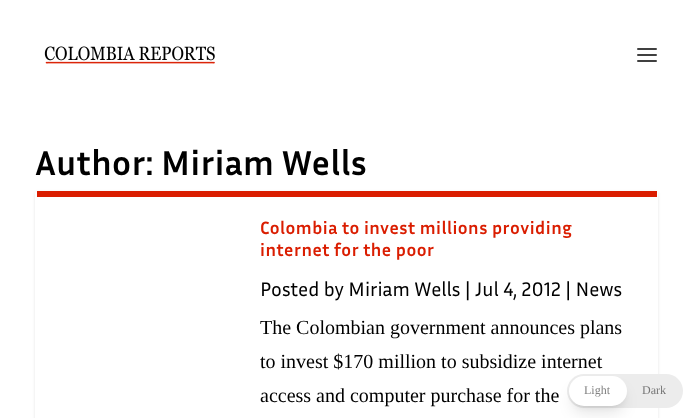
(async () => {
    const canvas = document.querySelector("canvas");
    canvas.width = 693;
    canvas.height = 418;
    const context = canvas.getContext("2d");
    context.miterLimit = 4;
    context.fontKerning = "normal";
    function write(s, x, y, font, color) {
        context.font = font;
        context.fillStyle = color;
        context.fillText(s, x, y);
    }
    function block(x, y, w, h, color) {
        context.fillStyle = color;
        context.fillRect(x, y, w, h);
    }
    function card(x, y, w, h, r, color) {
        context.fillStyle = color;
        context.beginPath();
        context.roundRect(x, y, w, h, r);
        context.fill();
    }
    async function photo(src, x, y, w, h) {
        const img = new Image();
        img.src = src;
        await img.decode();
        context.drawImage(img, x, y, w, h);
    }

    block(0, 0, 693, 418, "rgb(255, 255, 255)");
    await photo("media/1.png", 44, 46, 171, 18);
    card(637, 48, 20, 2, 1, "rgb(64, 64, 64)");
    card(637, 54, 20, 2, 1, "rgb(64, 64, 64)");
    card(637, 60, 20, 2, 1, "rgb(64, 64, 64)");
    context.letterSpacing = "0.5px";
    write("Author: Miriam Wells", 35, 175, "bold 35px Inria Sans", "rgb(0, 0, 0)");
    context.fillStyle = "rgba(0, 0, 0, 0.1)";
    context.filter = "blur(1.5px)";
    context.beginPath();
    context.roundRect(35, 192, 623, 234, 3);
    context.fill();
    context.filter = "none";
    card(35, 191, 623, 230, 3, "rgb(255, 255, 255)");
    block(37, 191, 620, 6, "rgb(218, 29, 0)");
    write("Colombia to invest millions providing", 260, 234, "bold 18px Inria Sans", "rgb(218, 29, 0)");
    write("internet for the poor", 260, 256, "bold 18px Inria Sans", "rgb(218, 29, 0)");
    context.letterSpacing = "0px";
    write("Posted by Miriam Wells | Jul 4, 2012 | News", 260, 296, "20px Inria Sans", "rgb(0, 0, 0)");
    write("The Colombian government announces plans", 260, 334, "20px Liberation Serif", "rgb(0, 0, 0)");
    write("to invest $170 million to subsidize internet", 260, 368, "20px Liberation Serif", "rgb(0, 0, 0)");
    write("access and computer purchase for the", 260, 402, "20px Liberation Serif", "rgb(0, 0, 0)");
    card(567, 374, 116, 34, 17, "rgb(236, 236, 236)");
    context.fillStyle = "rgba(0, 0, 0, 0.1)";
    context.filter = "blur(3px)";
    context.beginPath();
    context.roundRect(573, 384, 50, 22, 11);
    context.fill();
    context.filter = "none";
    context.filter = "blur(7.5px)";
    context.beginPath();
    context.roundRect(572, 389, 52, 24, 12);
    context.fill();
    context.filter = "none";
    card(569, 376, 58, 30, 15, "rgb(255, 255, 255)");
    write("Light", 584, 394, "12px Liberation Serif", "rgb(128, 128, 128)");
    write("Dark", 642, 394, "12px Liberation Serif", "rgb(118, 118, 118)");
})();
